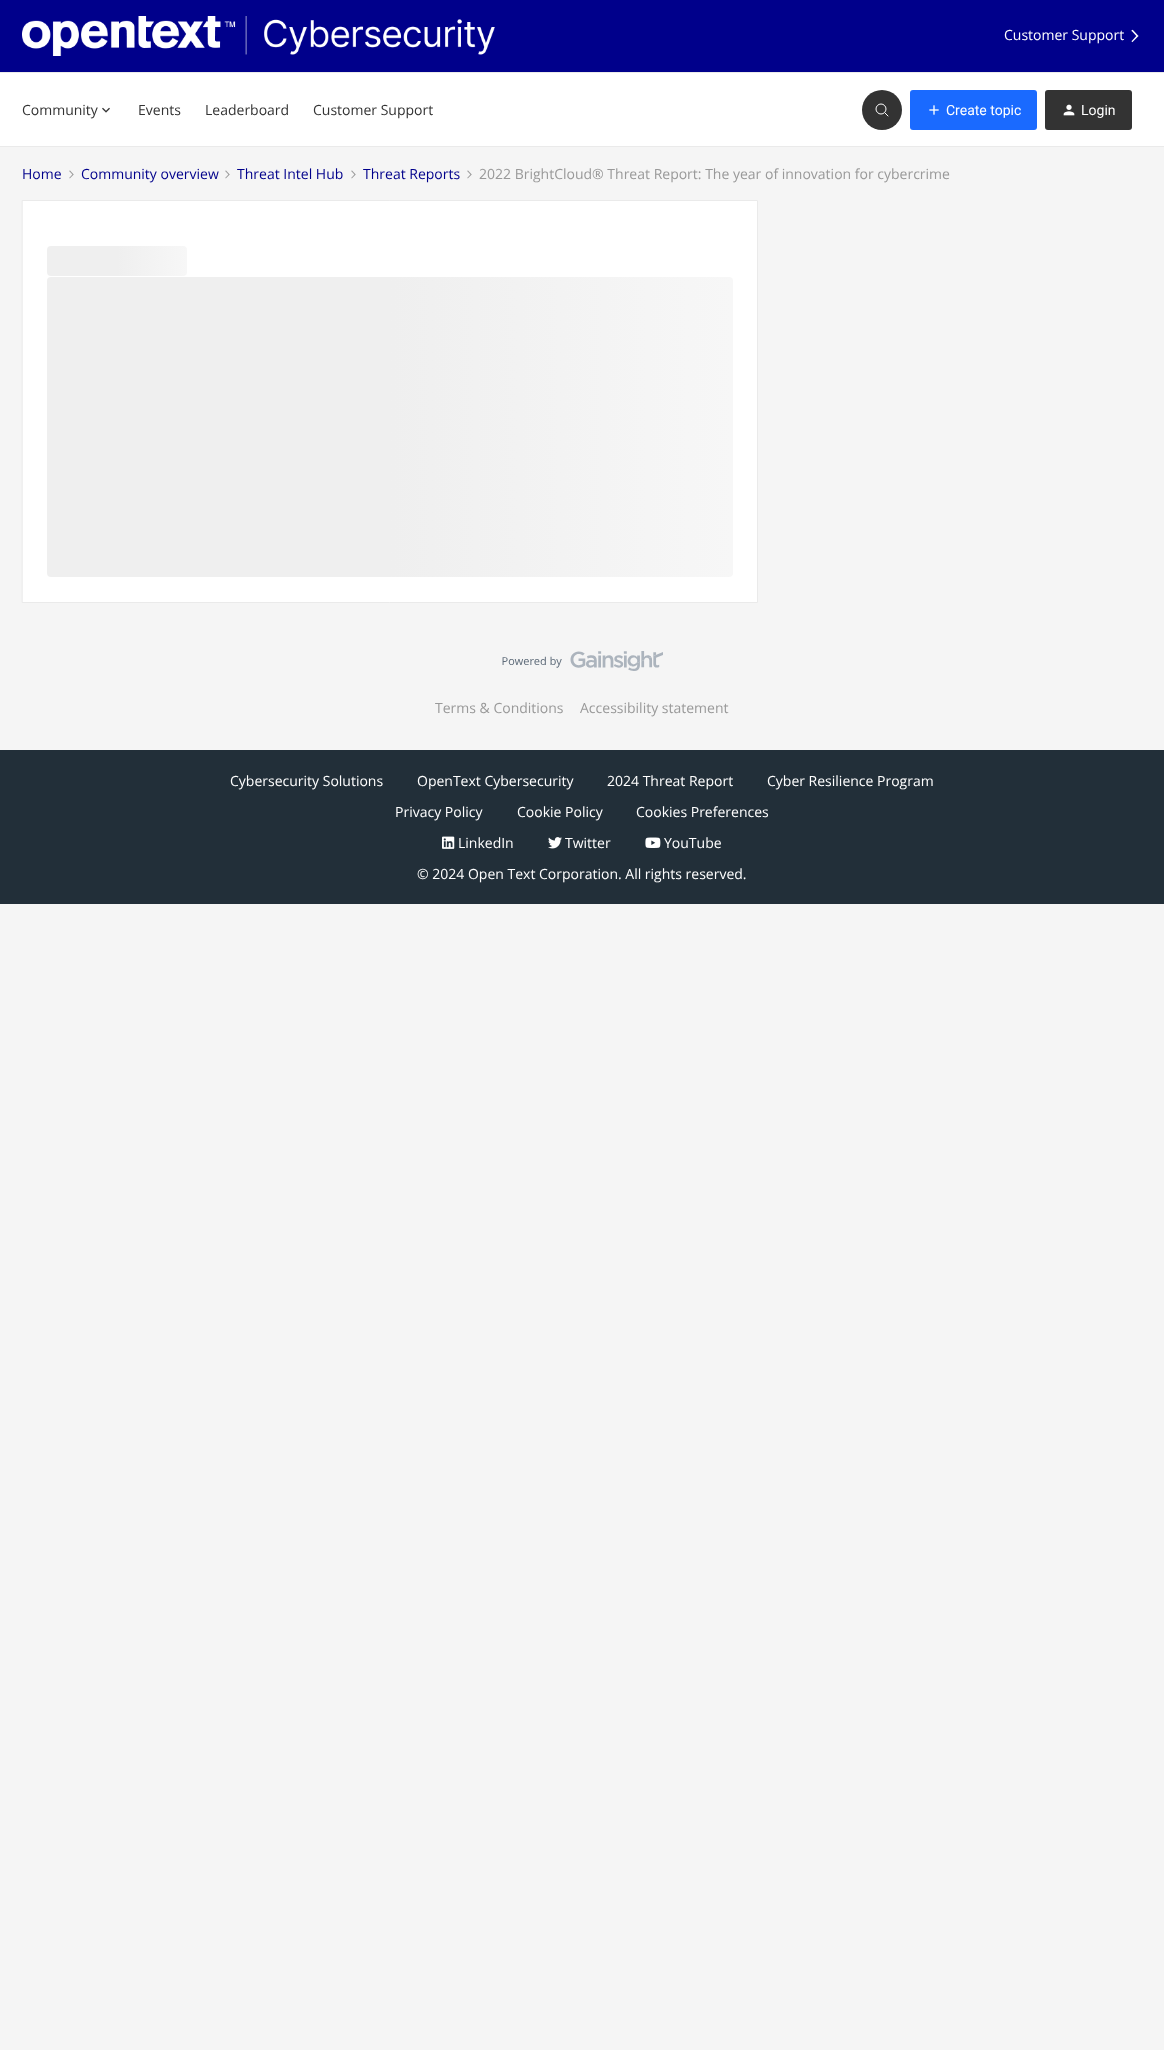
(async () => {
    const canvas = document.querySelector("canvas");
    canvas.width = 1164;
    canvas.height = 2050;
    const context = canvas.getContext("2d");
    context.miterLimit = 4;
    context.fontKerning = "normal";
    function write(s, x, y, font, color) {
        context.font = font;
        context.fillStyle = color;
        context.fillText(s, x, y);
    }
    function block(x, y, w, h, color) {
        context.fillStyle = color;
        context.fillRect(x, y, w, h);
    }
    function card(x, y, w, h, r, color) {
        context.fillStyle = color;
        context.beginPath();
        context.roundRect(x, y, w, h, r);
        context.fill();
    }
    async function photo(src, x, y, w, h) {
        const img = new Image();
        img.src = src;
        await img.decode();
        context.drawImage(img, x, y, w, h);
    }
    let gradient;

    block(0, 0, 1164, 2050, "rgb(245, 245, 245)");
    block(0, 0, 1164, 72, "rgb(0, 0, 139)");
    await photo("media/1.png", 22, 16, 473, 40);
    write("Customer Support", 1004, 40, "14px Open Sans", "rgb(255, 255, 255)");
    await photo("media/2.png", 1131, 29, 8, 14);
    block(0, 73, 1164, 73, "rgb(255, 255, 255)");
    block(0, 72, 1164, 1, "rgb(234, 234, 234)");
    block(0, 146, 1164, 1, "rgb(234, 234, 234)");
    write("Community", 22, 115, "14px Open Sans", "rgb(51, 51, 51)");
    await photo("media/3.png", 102, 107, 8, 6);
    write("Events", 138, 115, "14px Open Sans", "rgb(51, 51, 51)");
    write("Leaderboard", 205, 115, "14px Open Sans", "rgb(51, 51, 51)");
    write("Customer Support", 313, 115, "14px Open Sans", "rgb(51, 51, 51)");
    context.beginPath();
    context.arc(882, 110, 20, 0, Math.PI * 2);
    context.fill();
    context.beginPath();
    context.arc(881, 109, 5, 0, Math.PI * 2);
    context.strokeStyle = "rgb(255, 255, 255)";
    context.stroke();
    context.beginPath();
    context.moveTo(885, 113);
    context.lineTo(888, 116);
    context.lineCap = "round";
    context.stroke();
    card(910, 90, 127, 40, 3, "rgb(26, 106, 255)");
    await photo("media/4.png", 929, 105, 10, 10);
    write("Create topic", 946, 115, "14px Roboto", "rgb(255, 255, 255)");
    card(1045, 90, 87, 40, 3, "rgb(51, 51, 51)");
    await photo("media/5.png", 1063, 104, 12, 12);
    write("Login", 1081, 115, "14px Roboto", "rgb(255, 255, 255)");
    write("Home", 22, 179, "14px Open Sans", "rgb(0, 0, 139)");
    await photo("media/6.png", 69, 170, 5, 9);
    write("Community overview", 81, 179, "14px Open Sans", "rgb(0, 0, 139)");
    await photo("media/6.png", 225, 170, 5, 9);
    write("Threat Intel Hub", 237, 179, "14px Open Sans", "rgb(0, 0, 139)");
    await photo("media/6.png", 351, 170, 5, 9);
    write("Threat Reports", 363, 179, "14px Open Sans", "rgb(0, 0, 139)");
    await photo("media/6.png", 467, 170, 5, 9);
    write("2022 BrightCloud® Threat Report: The year of innovation for cybercrime", 479, 179, "14px Open Sans", "rgb(153, 153, 153)");
    context.fillStyle = "rgb(255, 255, 255)";
    context.beginPath();
    context.rect(22.5, 200.5, 735, 402);
    context.fill();
    context.strokeStyle = "rgb(234, 234, 234)";
    context.stroke();
    gradient = context.createLinearGradient(47, 261, 327, 261);
    gradient.addColorStop(0.25, "rgb(239, 239, 239)");
    gradient.addColorStop(0.5, "rgb(247, 247, 247)");
    gradient.addColorStop(0.75, "rgb(239, 239, 239)");
    context.fillStyle = gradient;
    context.beginPath();
    context.roundRect(47, 246, 140, 30, 4);
    context.fill();
    gradient = context.createLinearGradient(47, 427, 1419, 427);
    gradient.addColorStop(0.25, "rgb(239, 239, 239)");
    gradient.addColorStop(0.5, "rgb(247, 247, 247)");
    gradient.addColorStop(0.75, "rgb(239, 239, 239)");
    context.fillStyle = gradient;
    context.beginPath();
    context.roundRect(47, 277, 686, 300, 4);
    context.fill();
    await photo("media/7.png", 502, 651, 161, 20);
    write("Terms & Conditions", 435, 713, "14px Open Sans", "rgb(153, 153, 153)");
    write("Accessibility statement", 580, 713, "14px Open Sans", "rgb(153, 153, 153)");
    block(0, 750, 1164, 154, "rgb(34, 47, 57)");
    write("Cybersecurity Solutions", 230, 786, "14px Open Sans", "rgb(255, 255, 255)");
    write("OpenText Cybersecurity", 417, 786, "14px Open Sans", "rgb(255, 255, 255)");
    write("2024 Threat Report", 607, 786, "14px Open Sans", "rgb(255, 255, 255)");
    write("Cyber Resilience Program", 767, 786, "14px Open Sans", "rgb(255, 255, 255)");
    write("Privacy Policy", 395, 817, "14px Open Sans", "rgb(255, 255, 255)");
    write("Cookie Policy", 517, 817, "14px Open Sans", "rgb(255, 255, 255)");
    write("Cookies Preferences", 636, 817, "14px Open Sans", "rgb(255, 255, 255)");
    await photo("media/8.png", 442, 836, 13, 13);
    write("LinkedIn", 458, 848, "14px Open Sans", "rgb(255, 255, 255)");
    await photo("media/9.png", 548, 837, 14, 12);
    write("Twitter", 565, 848, "14px Open Sans", "rgb(255, 255, 255)");
    await photo("media/10.png", 645, 837, 16, 11);
    write("YouTube", 664, 848, "14px Open Sans", "rgb(255, 255, 255)");
    write("© 2024 Open Text Corporation. All rights reserved.", 417, 879, "14px Open Sans", "rgb(255, 255, 255)");
})();
